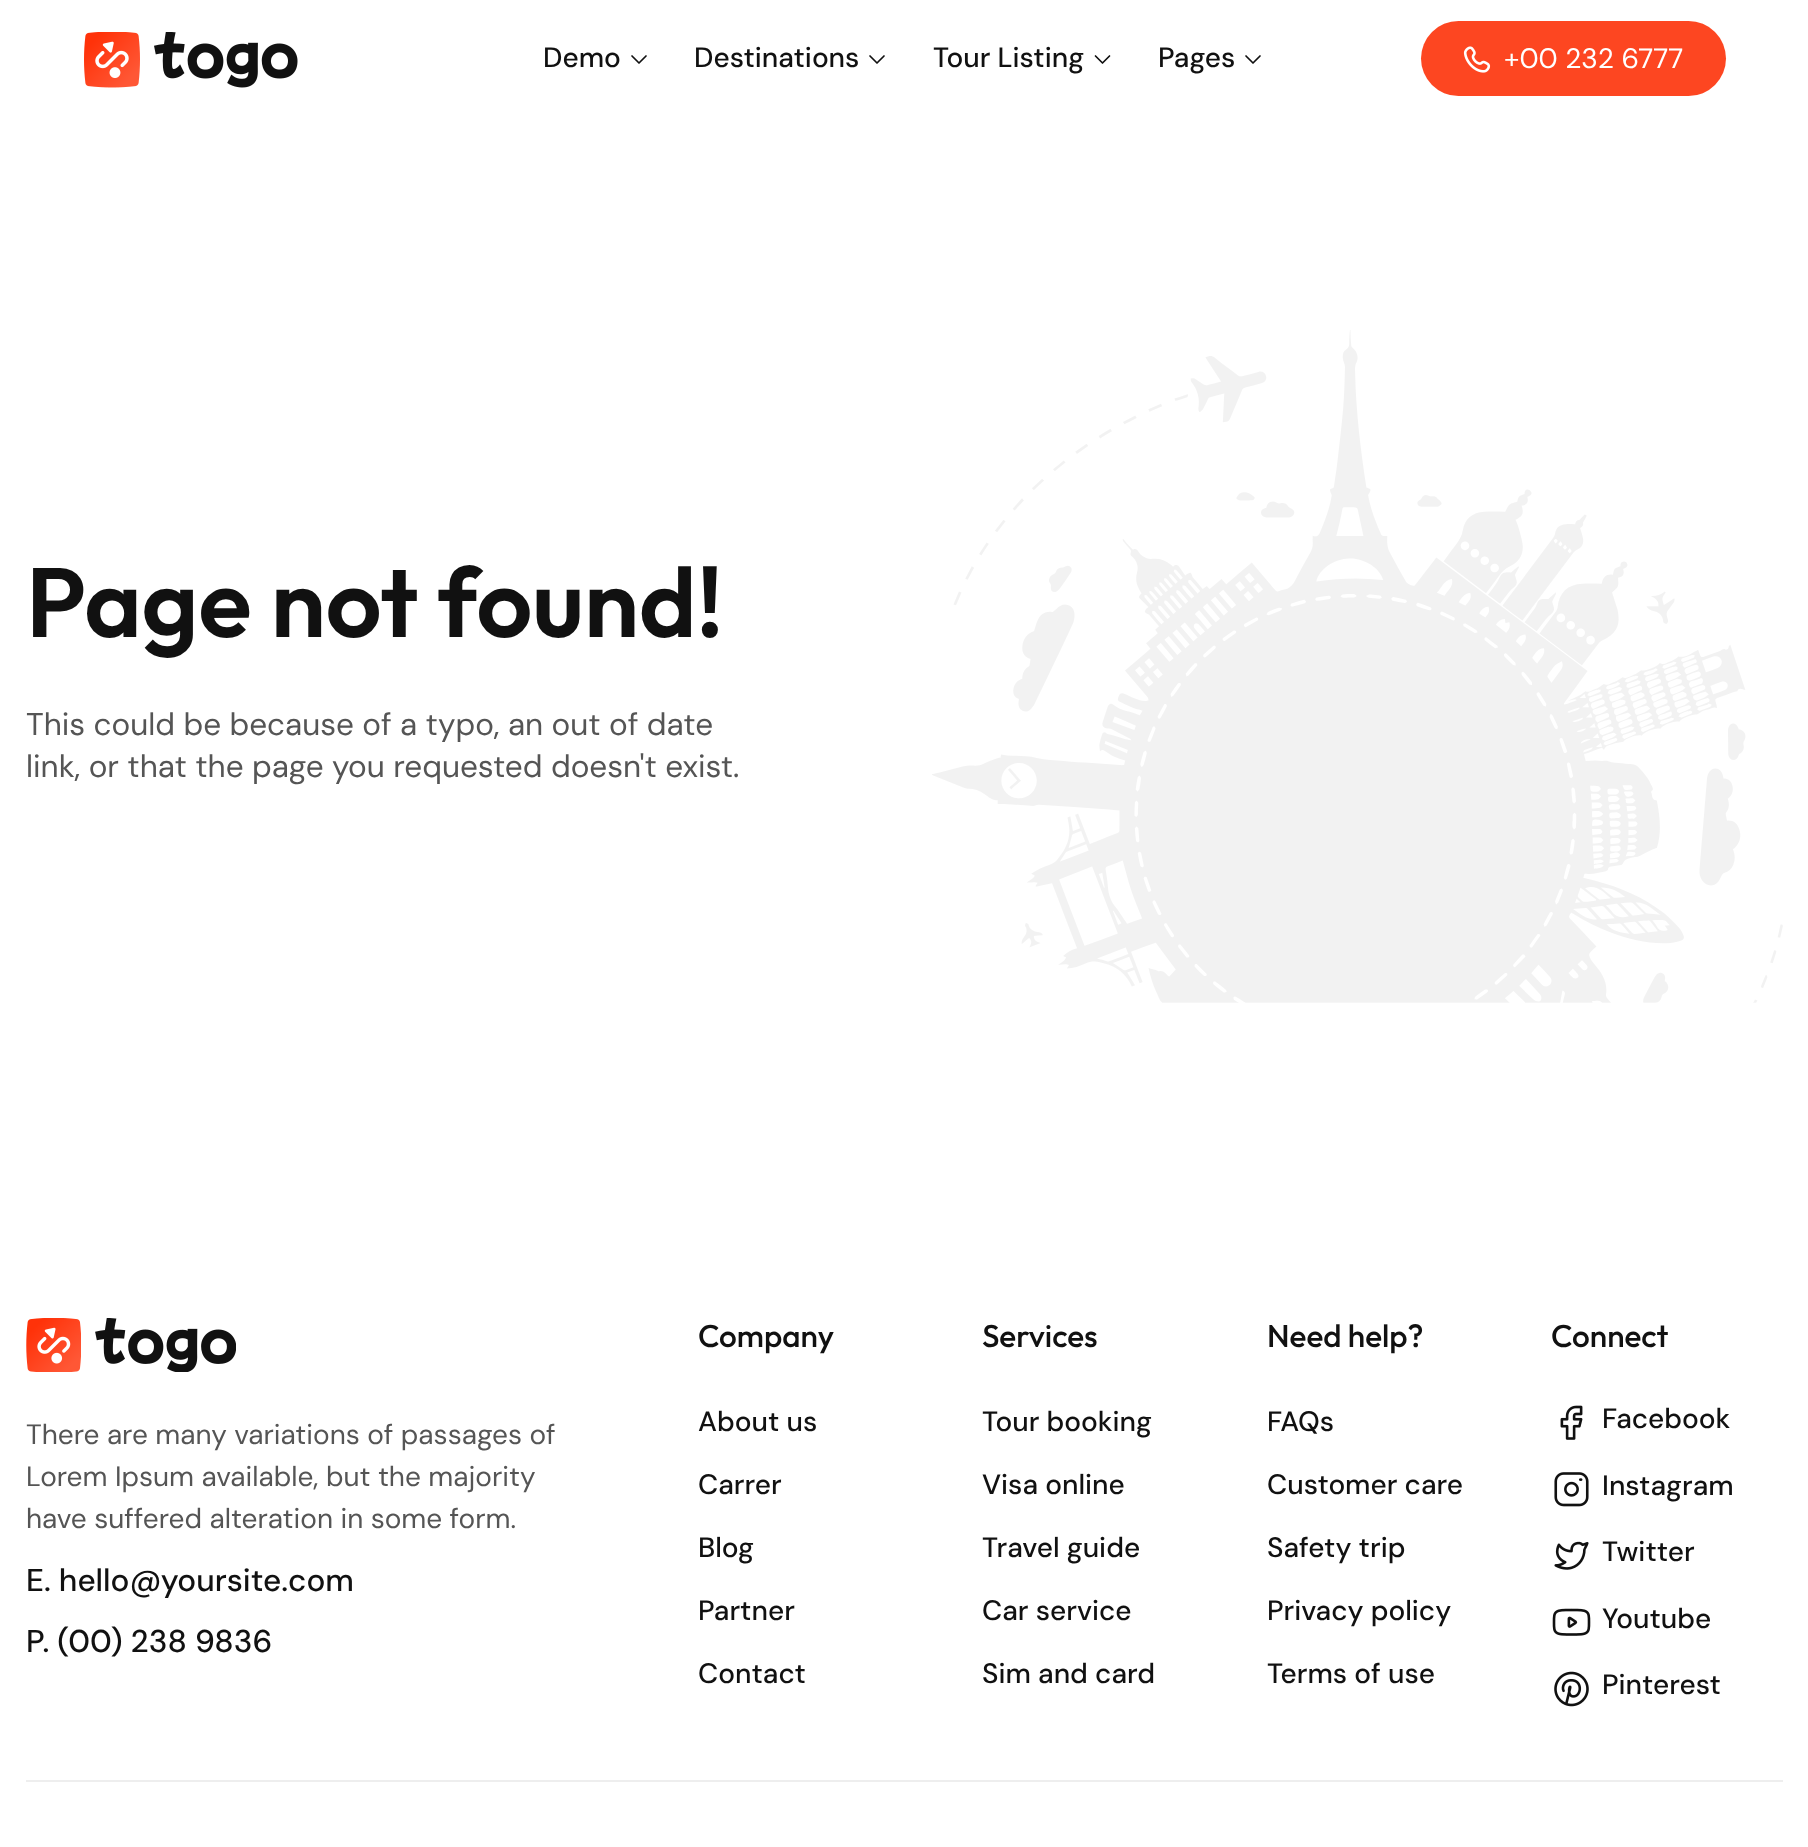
(async () => {
    const canvas = document.querySelector("canvas");
    canvas.width = 1808;
    canvas.height = 1847;
    const context = canvas.getContext("2d");
    context.miterLimit = 4;
    context.fontKerning = "normal";
    function write(s, x, y, font, color) {
        context.font = font;
        context.fillStyle = color;
        context.fillText(s, x, y);
    }
    function block(x, y, w, h, color) {
        context.fillStyle = color;
        context.fillRect(x, y, w, h);
    }
    function card(x, y, w, h, r, color) {
        context.fillStyle = color;
        context.beginPath();
        context.roundRect(x, y, w, h, r);
        context.fill();
    }
    async function photo(src, x, y, w, h) {
        const img = new Image();
        img.src = src;
        await img.decode();
        context.drawImage(img, x, y, w, h);
    }

    block(0, 0, 1808, 1847, "rgb(255, 255, 255)");
    await photo("media/1.png", 84, 32, 214, 56);
    write("Demo", 543, 67, "500 28px DM Sans", "rgb(17, 17, 17)");
    context.beginPath();
    context.moveTo(632, 56);
    context.lineTo(639, 63);
    context.lineTo(646, 56);
    context.strokeStyle = "rgb(17, 17, 17)";
    context.lineWidth = 1.7;
    context.lineCap = "round";
    context.lineJoin = "round";
    context.stroke();
    write("Destinations", 694, 67, "500 28px DM Sans", "rgb(17, 17, 17)");
    context.beginPath();
    context.moveTo(870, 56);
    context.lineTo(877, 63);
    context.lineTo(884, 56);
    context.stroke();
    write("Tour Listing", 933, 67, "500 28px DM Sans", "rgb(17, 17, 17)");
    context.beginPath();
    context.moveTo(1095.5, 56);
    context.lineTo(1102.5, 63);
    context.lineTo(1109.5, 56);
    context.stroke();
    write("Pages", 1158, 67, "500 28px DM Sans", "rgb(17, 17, 17)");
    context.beginPath();
    context.moveTo(1246, 56);
    context.lineTo(1253, 63);
    context.lineTo(1260, 56);
    context.stroke();
    card(1421, 21, 305, 75, 37.5, "rgb(253, 70, 33)");
    await photo("media/2.png", 1463, 46, 28, 27);
    write("+00 232 6777", 1504, 68, "28px DM Sans", "rgb(255, 255, 255)");
    write("Page not found!", 26, 637, "600 98px Outfit", "rgb(17, 17, 17)");
    write("This could be because of a typo, an out of date", 26, 735, "31.5px DM Sans", "rgb(85, 85, 85)");
    write("link, or that the page you requested doesn't exist.", 26, 777, "31.5px DM Sans", "rgb(85, 85, 85)");
    await photo("media/3.png", 932, 330, 851, 673);
    await photo("media/4.png", 26, 1318, 210, 54);
    write("There are many variations of passages of", 26, 1444, "28px DM Sans", "rgb(85, 85, 85)");
    write("Lorem Ipsum available, but the majority", 26, 1486, "28px DM Sans", "rgb(85, 85, 85)");
    write("have suffered alteration in some form.", 26, 1528, "28px DM Sans", "rgb(85, 85, 85)");
    write("E. hello@yoursite.com", 26, 1591, "500 31.5px DM Sans", "rgb(17, 17, 17)");
    write("P. (00) 238 9836", 26, 1652, "500 31.5px DM Sans", "rgb(17, 17, 17)");
    write("Company", 698, 1347, "500 31.5px Outfit", "rgb(17, 17, 17)");
    write("About us", 698, 1431, "500 28px DM Sans", "rgb(17, 17, 17)");
    write("Carrer", 698, 1494, "500 28px DM Sans", "rgb(17, 17, 17)");
    write("Blog", 698, 1557, "500 28px DM Sans", "rgb(17, 17, 17)");
    write("Partner", 698, 1620, "500 28px DM Sans", "rgb(17, 17, 17)");
    write("Contact", 698, 1683, "500 28px DM Sans", "rgb(17, 17, 17)");
    write("Services", 982, 1347, "500 31.5px Outfit", "rgb(17, 17, 17)");
    write("Tour booking", 982, 1431, "500 28px DM Sans", "rgb(17, 17, 17)");
    write("Visa online", 982, 1494, "500 28px DM Sans", "rgb(17, 17, 17)");
    write("Travel guide", 982, 1557, "500 28px DM Sans", "rgb(17, 17, 17)");
    write("Car service", 982, 1620, "500 28px DM Sans", "rgb(17, 17, 17)");
    write("Sim and card", 982, 1683, "500 28px DM Sans", "rgb(17, 17, 17)");
    write("Need help?", 1267, 1347, "500 31.5px Outfit", "rgb(17, 17, 17)");
    write("FAQs", 1267, 1431, "500 28px DM Sans", "rgb(17, 17, 17)");
    write("Customer care", 1267, 1494, "500 28px DM Sans", "rgb(17, 17, 17)");
    write("Safety trip", 1267, 1557, "500 28px DM Sans", "rgb(17, 17, 17)");
    write("Privacy policy", 1267, 1620, "500 28px DM Sans", "rgb(17, 17, 17)");
    write("Terms of use", 1267, 1683, "500 28px DM Sans", "rgb(17, 17, 17)");
    write("Connect", 1551, 1347, "500 31.5px Outfit", "rgb(17, 17, 17)");
    await photo("media/5.png", 1560, 1405, 23, 35);
    write("Facebook", 1602, 1428, "500 28px DM Sans", "rgb(17, 17, 17)");
    await photo("media/6.png", 1554, 1472, 35, 35);
    write("Instagram", 1602, 1495, "500 28px DM Sans", "rgb(17, 17, 17)");
    await photo("media/7.png", 1554, 1541, 35, 29);
    write("Twitter", 1602, 1561, "500 28px DM Sans", "rgb(17, 17, 17)");
    await photo("media/8.png", 1552, 1608, 39, 28);
    write("Youtube", 1602, 1628, "500 28px DM Sans", "rgb(17, 17, 17)");
    await photo("media/9.png", 1554, 1671, 35, 36);
    write("Pinterest", 1602, 1694, "500 28px DM Sans", "rgb(17, 17, 17)");
    block(26, 1780, 1757, 2, "rgb(238, 238, 238)");
})();
